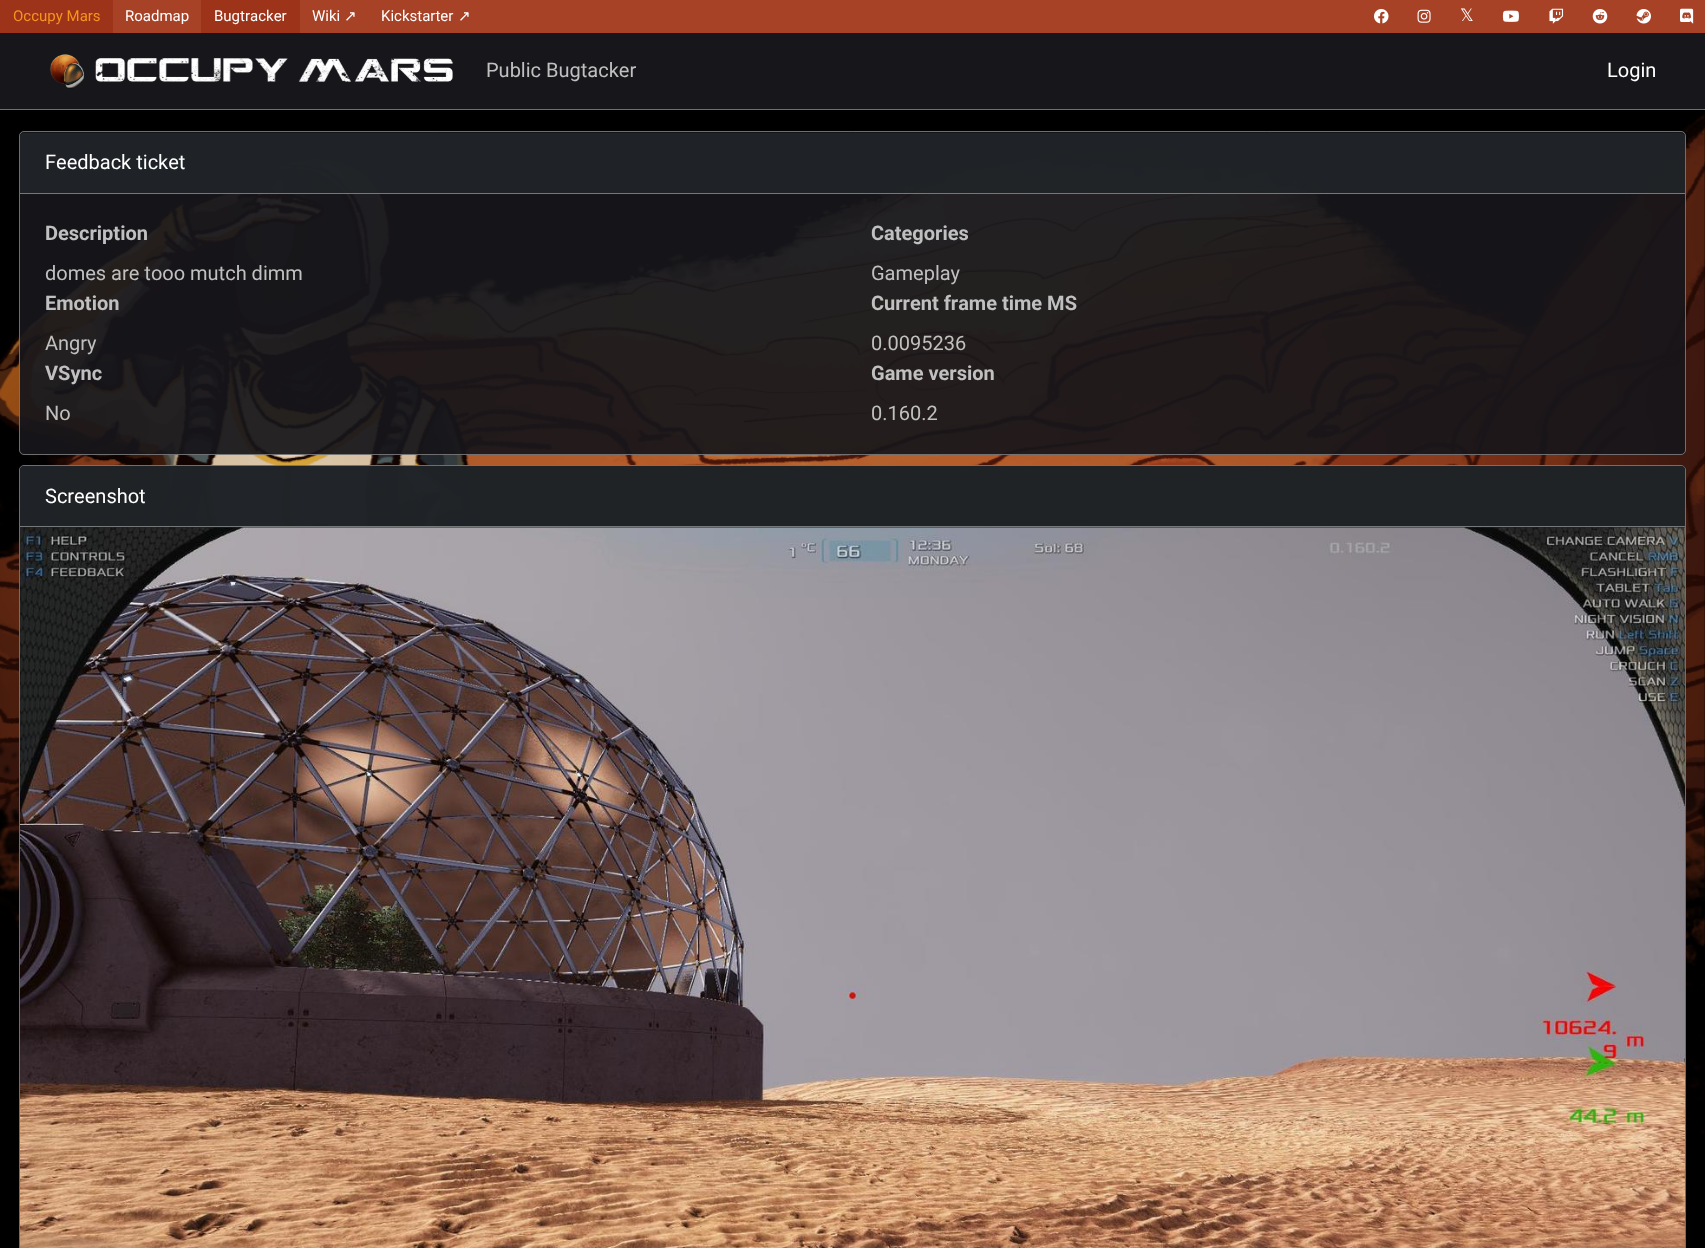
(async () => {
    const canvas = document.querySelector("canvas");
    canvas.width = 1705;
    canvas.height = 1248;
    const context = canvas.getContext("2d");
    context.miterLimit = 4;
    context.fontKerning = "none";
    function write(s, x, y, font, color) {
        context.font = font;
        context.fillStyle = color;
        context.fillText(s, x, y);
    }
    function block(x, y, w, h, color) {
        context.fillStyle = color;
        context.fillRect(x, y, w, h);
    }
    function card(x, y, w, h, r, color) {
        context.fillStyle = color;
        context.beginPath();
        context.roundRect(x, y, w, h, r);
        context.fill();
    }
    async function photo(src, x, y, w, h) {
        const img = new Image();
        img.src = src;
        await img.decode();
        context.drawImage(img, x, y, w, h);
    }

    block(0, 0, 1705, 1248, "rgb(0, 0, 0)");
    await photo("media/1.png", 0, 111, 1705, 1095);
    block(113, 0, 1592, 33, "rgb(167, 66, 38)");
    block(0, 0, 113, 33, "rgb(157, 51, 24)");
    write("Occupy Mars", 13, 21, "15px Roboto", "rgb(247, 148, 30)");
    write("Roadmap", 125, 21, "15px Roboto", "rgb(255, 255, 255)");
    block(201, 0, 99, 33, "rgb(157, 51, 24)");
    write("Bugtracker", 214, 21, "15px Roboto", "rgb(255, 255, 255)");
    write("Wiki", 312, 21, "15px Roboto", "rgb(255, 255, 255)");
    write("↗", 344, 21, "15px DejaVu Sans", "rgb(255, 255, 255)");
    write("Kickstarter", 381, 21, "15px Roboto", "rgb(255, 255, 255)");
    write("↗", 458, 21, "15px DejaVu Sans", "rgb(255, 255, 255)");
    await photo("media/2.png", 1374, 9, 15, 15);
    await photo("media/3.png", 1417, 9, 14, 14);
    write("𝕏", 1460, 21, "17px DejaVu Sans", "rgb(255, 255, 255)");
    await photo("media/4.png", 1502, 10, 17, 12);
    await photo("media/5.png", 1549, 8, 15, 16);
    await photo("media/6.png", 1592, 9, 16, 15);
    await photo("media/7.png", 1636, 9, 15, 15);
    await photo("media/8.png", 1680, 8, 14, 16);
    block(0, 33, 1705, 76, "rgb(23, 22, 26)");
    block(0, 109, 1705, 1, "rgb(111, 111, 113)");
    await photo("media/9.png", 50, 54, 403, 35);
    write("Public Bugtacker", 486, 77, "20px Roboto", "rgb(192, 192, 192)");
    write("Login", 1607, 77, "20px Roboto", "rgb(255, 255, 255)");
    card(19, 131, 1667, 324, 5, "rgba(23, 22, 26, 0.93)");
    context.beginPath();
    context.roundRect(19.5, 131.5, 1666, 323, 4.5);
    context.strokeStyle = "rgba(255, 255, 255, 0.38)";
    context.stroke();
    context.fillStyle = "rgba(33, 37, 41, 0.86)";
    context.beginPath();
    context.roundRect(20, 133, 1665, 61, [4, 4, 0, 0]);
    context.fill();
    block(20, 193, 1665, 1, "rgb(117, 119, 121)");
    write("Feedback ticket", 45, 169, "20px Roboto", "rgb(255, 255, 255)");
    write("Description", 45, 240, "bold 20px Roboto", "rgb(192, 192, 192)");
    write("domes are tooo mutch dimm", 45, 280, "20px Roboto", "rgb(192, 192, 192)");
    write("Categories", 871, 240, "bold 20px Roboto", "rgb(192, 192, 192)");
    write("Gameplay", 871, 280, "20px Roboto", "rgb(192, 192, 192)");
    write("Emotion", 45, 310, "bold 20px Roboto", "rgb(192, 192, 192)");
    write("Angry", 45, 350, "20px Roboto", "rgb(192, 192, 192)");
    write("Current frame time MS", 871, 310, "bold 20px Roboto", "rgb(192, 192, 192)");
    write("0.0095236", 871, 350, "20px Roboto", "rgb(192, 192, 192)");
    write("VSync", 45, 380, "bold 20px Roboto", "rgb(192, 192, 192)");
    write("No", 45, 420, "20px Roboto", "rgb(192, 192, 192)");
    write("Game version", 871, 380, "bold 20px Roboto", "rgb(192, 192, 192)");
    write("0.160.2", 871, 420, "20px Roboto", "rgb(192, 192, 192)");
    card(19, 465, 1667, 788, 5, "rgba(23, 22, 26, 0.93)");
    context.beginPath();
    context.roundRect(19.5, 465.5, 1666, 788, 4.5);
    context.stroke();
    context.fillStyle = "rgba(33, 37, 41, 0.86)";
    context.beginPath();
    context.roundRect(20, 466, 1665, 62, [4, 4, 0, 0]);
    context.fill();
    block(20, 526, 1665, 1, "rgb(117, 119, 121)");
    write("Screenshot", 45, 503, "20px Roboto", "rgb(255, 255, 255)");
    await photo("media/10.png", 20, 527, 1665, 721);
})();
